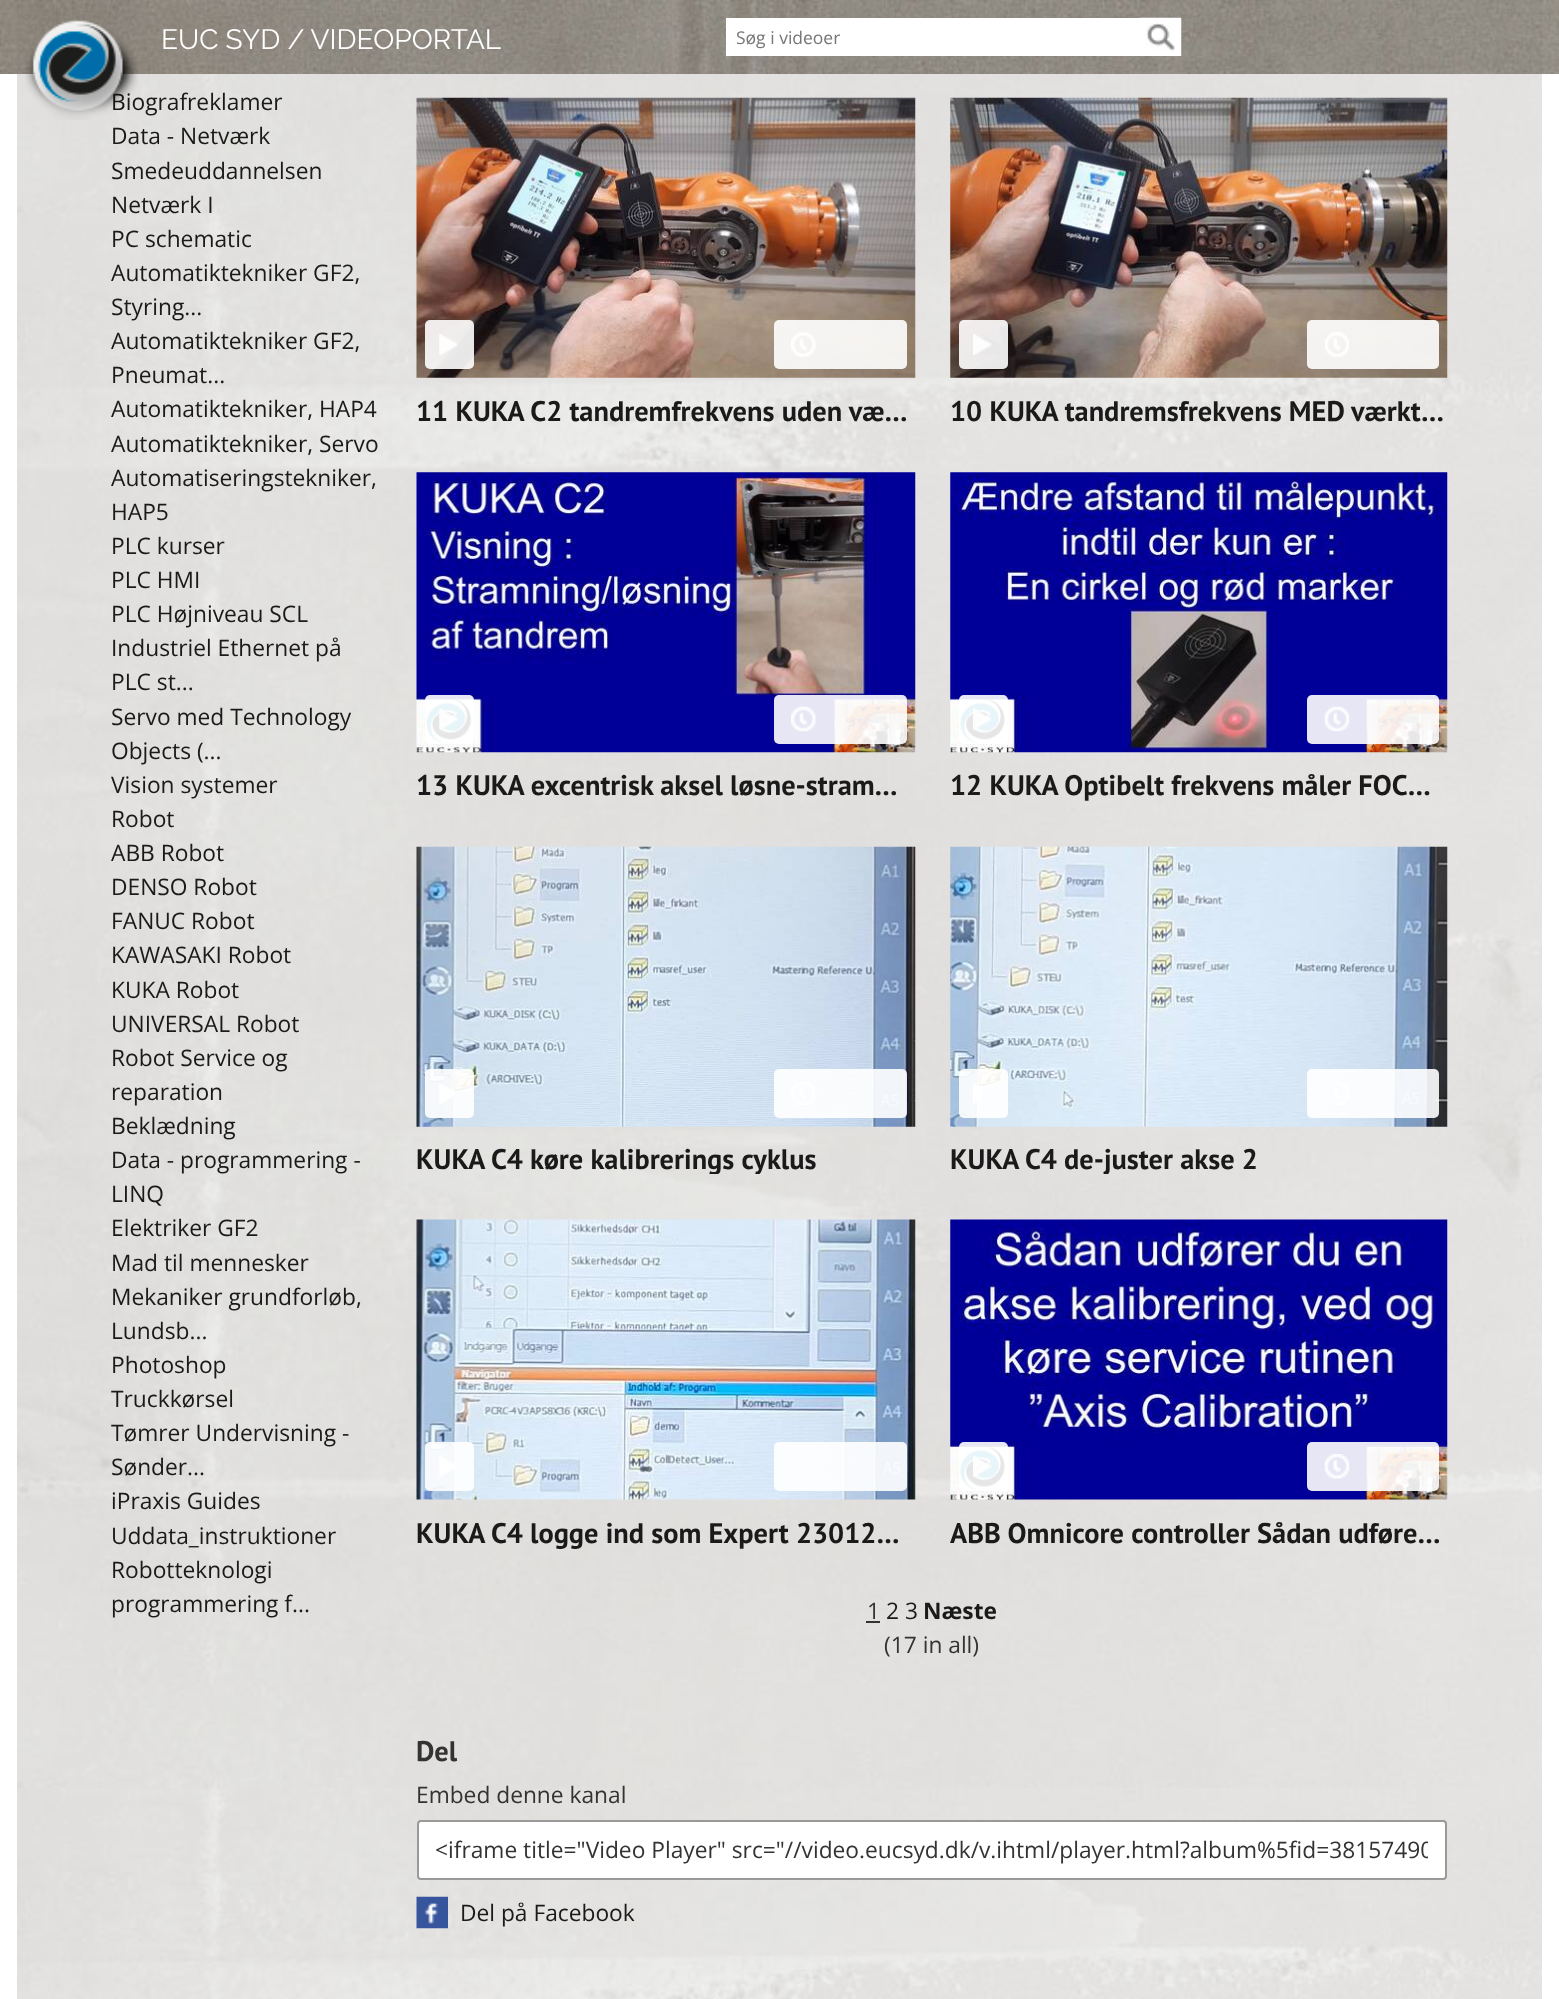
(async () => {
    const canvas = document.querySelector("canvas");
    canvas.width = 1559;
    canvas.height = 1999;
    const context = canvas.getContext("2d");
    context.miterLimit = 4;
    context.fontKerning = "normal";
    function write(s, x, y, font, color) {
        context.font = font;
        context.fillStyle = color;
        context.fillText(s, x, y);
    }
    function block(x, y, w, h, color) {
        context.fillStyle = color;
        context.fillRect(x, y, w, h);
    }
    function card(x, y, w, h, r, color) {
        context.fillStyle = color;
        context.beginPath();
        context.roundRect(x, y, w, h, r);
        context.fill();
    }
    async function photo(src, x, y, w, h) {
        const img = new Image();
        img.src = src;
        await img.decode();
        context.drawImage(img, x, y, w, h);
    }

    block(0, 0, 1559, 1999, "rgb(255, 255, 255)");
    await photo("media/4.png", 17, 0, 1525, 1999);
    await photo("media/1.png", 0, 0, 1559, 74);
    write("Biografreklamer", 111, 110, "22.75px Open Sans", "rgb(26, 26, 26)");
    await photo("media/2.png", 25, 20, 113, 100);
    write("EUC SYD / VIDEOPORTAL", 161, 49, "28px Raleway", "rgb(255, 255, 255)");
    block(726, 18, 414, 38, "rgb(255, 255, 255)");
    await photo("media/3.png", 1139, 17, 43, 39);
    write("Søg i videoer", 736, 44, "17.5px Open Sans", "rgb(117, 117, 117)");
    write("Data - Netværk", 111, 144, "22.75px Open Sans", "rgb(26, 26, 26)");
    write("Smedeuddannelsen", 111, 179, "22.75px Open Sans", "rgb(26, 26, 26)");
    write("Netværk I", 111, 213, "22.75px Open Sans", "rgb(26, 26, 26)");
    write("PC schematic", 111, 247, "22.75px Open Sans", "rgb(26, 26, 26)");
    write("Automatiktekniker GF2,", 111, 281, "22.75px Open Sans", "rgb(26, 26, 26)");
    write("Styring...", 111, 315, "22.75px Open Sans", "rgb(26, 26, 26)");
    write("Automatiktekniker GF2,", 111, 349, "22.75px Open Sans", "rgb(26, 26, 26)");
    write("Pneumat...", 111, 383, "22.75px Open Sans", "rgb(26, 26, 26)");
    write("Automatiktekniker, HAP4", 111, 417, "22.75px Open Sans", "rgb(26, 26, 26)");
    write("Automatiktekniker, Servo", 111, 452, "22.75px Open Sans", "rgb(26, 26, 26)");
    write("Automatiseringstekniker,", 111, 486, "22.75px Open Sans", "rgb(26, 26, 26)");
    write("HAP5", 111, 520, "22.75px Open Sans", "rgb(26, 26, 26)");
    write("PLC kurser", 111, 554, "22.75px Open Sans", "rgb(26, 26, 26)");
    write("PLC HMI", 111, 588, "22.75px Open Sans", "rgb(26, 26, 26)");
    write("PLC Højniveau SCL", 111, 622, "22.75px Open Sans", "rgb(26, 26, 26)");
    write("Industriel Ethernet på", 111, 656, "22.75px Open Sans", "rgb(26, 26, 26)");
    write("PLC st...", 111, 690, "22.75px Open Sans", "rgb(26, 26, 26)");
    write("Servo med Technology", 111, 725, "22.75px Open Sans", "rgb(26, 26, 26)");
    write("Objects (...", 111, 759, "22.75px Open Sans", "rgb(26, 26, 26)");
    write("Vision systemer", 111, 793, "22.75px Open Sans", "rgb(26, 26, 26)");
    write("Robot", 111, 827, "22.75px Open Sans", "rgb(26, 26, 26)");
    write("ABB Robot", 111, 861, "22.75px Open Sans", "rgb(26, 26, 26)");
    write("DENSO Robot", 111, 895, "22.75px Open Sans", "rgb(26, 26, 26)");
    write("FANUC Robot", 111, 929, "22.75px Open Sans", "rgb(26, 26, 26)");
    write("KAWASAKI Robot", 111, 963, "22.75px Open Sans", "rgb(26, 26, 26)");
    write("KUKA Robot", 111, 998, "22.75px Open Sans", "rgb(26, 26, 26)");
    write("UNIVERSAL Robot", 111, 1032, "22.75px Open Sans", "rgb(26, 26, 26)");
    write("Robot Service og", 111, 1066, "22.75px Open Sans", "rgb(26, 26, 26)");
    write("reparation", 111, 1100, "22.75px Open Sans", "rgb(26, 26, 26)");
    write("Beklædning", 111, 1134, "22.75px Open Sans", "rgb(26, 26, 26)");
    write("Data - programmering -", 111, 1168, "22.75px Open Sans", "rgb(26, 26, 26)");
    write("LINQ", 111, 1202, "22.75px Open Sans", "rgb(26, 26, 26)");
    write("Elektriker GF2", 111, 1236, "22.75px Open Sans", "rgb(26, 26, 26)");
    write("Mad til mennesker", 111, 1271, "22.75px Open Sans", "rgb(26, 26, 26)");
    write("Mekaniker grundforløb,", 111, 1305, "22.75px Open Sans", "rgb(26, 26, 26)");
    write("Lundsb...", 111, 1339, "22.75px Open Sans", "rgb(26, 26, 26)");
    write("Photoshop", 111, 1373, "22.75px Open Sans", "rgb(26, 26, 26)");
    write("Truckkørsel", 111, 1407, "22.75px Open Sans", "rgb(26, 26, 26)");
    write("Tømrer Undervisning -", 111, 1441, "22.75px Open Sans", "rgb(26, 26, 26)");
    write("Sønder...", 111, 1475, "22.75px Open Sans", "rgb(26, 26, 26)");
    write("iPraxis Guides", 111, 1509, "22.75px Open Sans", "rgb(26, 26, 26)");
    write("Uddata_instruktioner", 111, 1544, "22.75px Open Sans", "rgb(26, 26, 26)");
    write("Robotteknologi", 111, 1578, "22.75px Open Sans", "rgb(26, 26, 26)");
    write("programmering f...", 111, 1612, "22.75px Open Sans", "rgb(26, 26, 26)");
    await photo("media/5.png", 416, 97, 500, 281);
    card(425, 320, 49, 49, 5, "rgba(255, 255, 255, 0.9)");
    await photo("media/6.png", 439, 334, 19, 21);
    card(774, 320, 133, 49, 5, "rgba(255, 255, 255, 0.9)");
    await photo("media/7.png", 791, 332, 25, 25);
    write("11 KUKA C2 tandremfrekvens uden væ…", 416, 421, "bold 28.4px PT Sans", "rgb(26, 26, 26)");
    await photo("media/8.png", 950, 97, 498, 281);
    card(959, 320, 49, 49, 5, "rgba(255, 255, 255, 0.9)");
    await photo("media/9.png", 973, 334, 19, 21);
    card(1307, 320, 132, 49, 5, "rgba(255, 255, 255, 0.9)");
    await photo("media/10.png", 1325, 332, 24, 25);
    write("10 KUKA tandremsfrekvens MED værkt…", 950, 421, "bold 28.4px PT Sans", "rgb(26, 26, 26)");
    await photo("media/11.png", 416, 472, 500, 281);
    card(425, 695, 49, 49, 5, "rgba(255, 255, 255, 0.9)");
    await photo("media/12.png", 439, 708, 19, 22);
    card(774, 695, 133, 49, 5, "rgba(255, 255, 255, 0.9)");
    await photo("media/13.png", 791, 706, 25, 26);
    write("13 KUKA excentrisk aksel løsne-stram…", 416, 795, "bold 28.4px PT Sans", "rgb(26, 26, 26)");
    await photo("media/14.png", 950, 472, 498, 281);
    card(959, 695, 49, 49, 5, "rgba(255, 255, 255, 0.9)");
    await photo("media/15.png", 973, 708, 19, 22);
    card(1307, 695, 132, 49, 5, "rgba(255, 255, 255, 0.9)");
    await photo("media/16.png", 1324, 706, 26, 26);
    write("12 KUKA Optibelt frekvens måler FOC…", 950, 795, "bold 28.4px PT Sans", "rgb(26, 26, 26)");
    await photo("media/17.png", 416, 846, 500, 281);
    card(425, 1069, 49, 49, 5, "rgba(255, 255, 255, 0.9)");
    await photo("media/18.png", 439, 1083, 15, 21);
    card(774, 1069, 133, 49, 5, "rgba(255, 255, 255, 0.9)");
    await photo("media/19.png", 791, 1082, 24, 23);
    context.save();
    context.beginPath();
    context.rect(417, 1141, 498, 33);
    context.clip();
    write("KUKA C4 køre kalibrerings cyklus", 416, 1169, "bold 28.4px PT Sans", "rgb(26, 26, 26)");
    context.restore();
    await photo("media/20.png", 950, 846, 498, 281);
    card(959, 1069, 49, 49, 5, "rgba(255, 255, 255, 0.9)");
    await photo("media/21.png", 973, 1083, 9, 21);
    card(1307, 1069, 132, 49, 5, "rgba(255, 255, 255, 0.9)");
    await photo("media/22.png", 1334, 1083, 15, 22);
    context.save();
    context.beginPath();
    context.rect(950, 1141, 497, 33);
    context.clip();
    write("KUKA C4 de-juster akse 2", 950, 1169, "bold 28.4px PT Sans", "rgb(26, 26, 26)");
    context.restore();
    await photo("media/23.png", 416, 1219, 500, 281);
    card(425, 1442, 49, 49, 5, "rgba(255, 255, 255, 0.9)");
    await photo("media/24.png", 439, 1456, 16, 21);
    card(774, 1442, 133, 49, 5, "rgba(255, 255, 255, 0.9)");
    write("KUKA C4 logge ind som Expert 23012…", 416, 1543, "bold 28.4px PT Sans", "rgb(26, 26, 26)");
    await photo("media/25.png", 950, 1219, 498, 281);
    card(959, 1442, 49, 49, 5, "rgba(255, 255, 255, 0.9)");
    await photo("media/26.png", 973, 1455, 19, 22);
    card(1307, 1442, 132, 49, 5, "rgba(255, 255, 255, 0.9)");
    await photo("media/27.png", 1324, 1454, 26, 25);
    write("ABB Omnicore controller Sådan udføre…", 950, 1543, "bold 28.4px PT Sans", "rgb(26, 26, 26)");
    write("1", 867, 1619, "22.75px Open Sans", "rgb(51, 51, 51)");
    block(866, 1621, 14, 2, "rgb(51, 51, 51)");
    write("2 3", 886, 1619, "22.75px Open Sans", "rgb(26, 26, 26)");
    write("Næste", 923, 1619, "bold 22.75px Open Sans", "rgb(26, 26, 26)");
    write("(17 in all)", 884, 1653, "22.75px Open Sans", "rgb(51, 51, 51)");
    write("Del", 416, 1761, "bold 28.4px PT Sans", "rgb(51, 51, 51)");
    write("Embed denne kanal", 416, 1803, "22.75px Open Sans", "rgb(51, 51, 51)");
    context.fillStyle = "rgb(255, 255, 255)";
    context.beginPath();
    context.roundRect(418, 1821, 1028, 58, 3);
    context.fill();
    context.strokeStyle = "rgb(153, 153, 153)";
    context.lineWidth = 2;
    context.stroke();
    context.save();
    context.beginPath();
    context.rect(436, 1834, 992, 32);
    context.clip();
    write("<iframe title=\"Video Player\" src=\"//video.eucsyd.dk/v.ihtml/player.html?album%5fid=38157490", 435, 1858, "22.75px Open Sans", "rgb(51, 51, 51)");
    context.restore();
    await photo("media/28.png", 416, 1896, 32, 33);
    write("Del på Facebook", 460, 1921, "22.75px Open Sans", "rgb(26, 26, 26)");
})();
